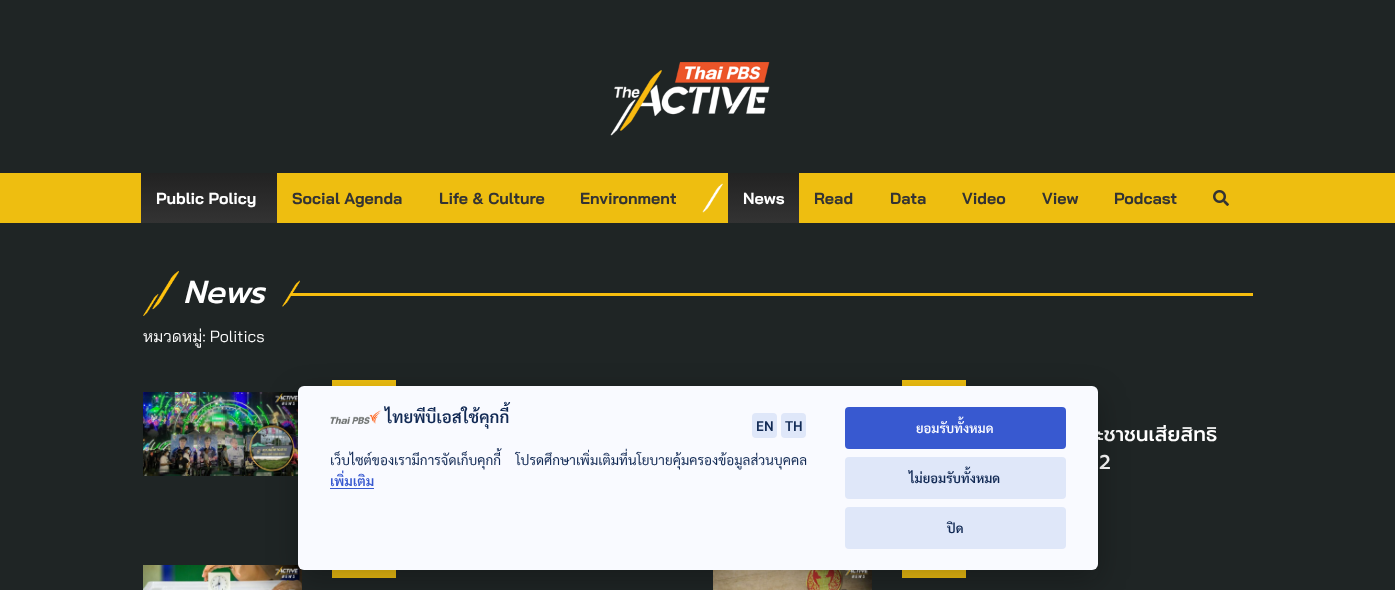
(async () => {
    const canvas = document.querySelector("canvas");
    canvas.width = 1395;
    canvas.height = 590;
    const context = canvas.getContext("2d");
    context.miterLimit = 4;
    context.fontKerning = "normal";
    function write(s, x, y, font, color) {
        context.font = font;
        context.fillStyle = color;
        context.fillText(s, x, y);
    }
    function block(x, y, w, h, color) {
        context.fillStyle = color;
        context.fillRect(x, y, w, h);
    }
    function card(x, y, w, h, r, color) {
        context.fillStyle = color;
        context.beginPath();
        context.roundRect(x, y, w, h, r);
        context.fill();
    }
    async function photo(src, x, y, w, h) {
        const img = new Image();
        img.src = src;
        await img.decode();
        context.drawImage(img, x, y, w, h);
    }
    let gradient;

    block(0, 0, 1395, 590, "rgb(31, 37, 37)");
    await photo("media/1.png", 610, 62, 160, 74);
    block(0, 173, 1395, 50, "rgb(238, 190, 16)");
    gradient = context.createLinearGradient(209, 173, 209, 223);
    gradient.addColorStop(0, "rgb(34, 34, 34)");
    gradient.addColorStop(1, "rgb(51, 51, 51)");
    context.fillStyle = gradient;
    context.fillRect(141, 173, 136, 50);
    write("Public Policy", 156, 204, "bold 16px Bai Jamjuree", "rgb(255, 255, 255)");
    write("Social Agenda", 292, 204, "bold 16px Bai Jamjuree", "rgb(51, 51, 51)");
    write("Life & Culture", 439, 204, "bold 16px Bai Jamjuree", "rgb(51, 51, 51)");
    write("Environment", 580, 204, "bold 16px Bai Jamjuree", "rgb(51, 51, 51)");
    await photo("media/2.png", 702, 183, 21, 30);
    gradient = context.createLinearGradient(764, 173, 764, 223);
    gradient.addColorStop(0, "rgb(34, 34, 34)");
    gradient.addColorStop(1, "rgb(51, 51, 51)");
    context.fillStyle = gradient;
    context.fillRect(728, 173, 71, 50);
    write("News", 743, 204, "bold 16px Bai Jamjuree", "rgb(255, 255, 255)");
    write("Read", 814, 204, "bold 16px Bai Jamjuree", "rgb(51, 51, 51)");
    write("Data", 890, 204, "bold 16px Bai Jamjuree", "rgb(51, 51, 51)");
    write("Video", 962, 204, "bold 16px Bai Jamjuree", "rgb(51, 51, 51)");
    write("View", 1042, 204, "bold 16px Bai Jamjuree", "rgb(51, 51, 51)");
    write("Podcast", 1114, 204, "bold 16px Bai Jamjuree", "rgb(51, 51, 51)");
    await photo("media/3.png", 1213, 190, 16, 16);
    await photo("media/4.png", 143, 271, 36, 45);
    write("News", 183, 303, "italic 500 32px Prompt", "rgb(255, 255, 255)");
    context.fillStyle = "rgb(245, 189, 14)";
    context.beginPath();
    context.roundRect(290, 293, 963, 3, [1.5, 0, 0, 1.5]);
    context.fill();
    await photo("media/5.png", 282, 280, 18, 27);
    write("หมวดหมู่: Politics", 143, 342, "16px Bai Jamjuree", "rgb(255, 255, 255)");
    block(332, 380, 64, 6, "rgb(238, 190, 16)");
    await photo("media/6.png", 143, 392, 155, 84);
    block(902, 380, 64, 6, "rgb(238, 190, 16)");
    write("ะชาชนเสียสิทธิ", 1097, 441, "500 20px Prompt", "rgb(255, 255, 255)");
    write("2", 1099, 469, "500 20px Prompt", "rgb(255, 255, 255)");
    await photo("media/7.png", 143, 565, 159, 25);
    block(332, 570, 64, 8, "rgb(238, 190, 16)");
    await photo("media/8.png", 713, 570, 159, 20);
    block(902, 570, 64, 8, "rgb(238, 190, 16)");
    context.fillStyle = "rgba(2, 2, 3, 0.28)";
    context.filter = "blur(15px)";
    context.beginPath();
    context.roundRect(298, 396, 800, 184, 6);
    context.fill();
    context.filter = "none";
    card(298, 386, 800, 184, 6, "rgb(249, 250, 255)");
    await photo("media/9.png", 330, 410, 52, 14);
    write("ไทยพีบีเอสใช้คุกกี้", 385, 423, "600 16.75px Sarabun", "rgb(17, 41, 84)");
    card(752, 413, 25, 25, 4, "rgb(223, 231, 249)");
    write("EN", 756, 431, "600 14px Sarabun", "rgb(17, 41, 84)");
    card(781, 413, 25, 25, 4, "rgb(223, 231, 249)");
    write("TH", 785, 431, "600 14px Sarabun", "rgb(17, 41, 84)");
    context.wordSpacing = "11px";
    write("เว็บไซต์ของเรามีการจัดเก็บคุกกี้ โปรดศึกษาเพิ่มเติมที่นโยบายคุ้มครองข้อมูลส่วนบุคคล", 330, 465, "13.6px Sarabun", "rgb(17, 41, 84)");
    context.wordSpacing = "0px";
    write("เพิ่มเติม", 330, 486, "600 13.6px Sarabun", "rgb(56, 89, 208)");
    block(330, 488, 44, 1, "rgb(56, 89, 208)");
    card(845, 407, 221, 42, 4, "rgb(56, 89, 208)");
    write("ยอมรับทั้งหมด", 916, 433, "600 13px Sarabun", "rgb(249, 250, 255)");
    card(845, 457, 221, 42, 4, "rgb(223, 231, 249)");
    write("ไม่ยอมรับทั้งหมด", 909, 483, "600 13px Sarabun", "rgb(17, 41, 84)");
    card(845, 507, 221, 42, 4, "rgb(223, 231, 249)");
    write("ปิด", 947, 533, "600 13px Sarabun", "rgb(17, 41, 84)");
})();
